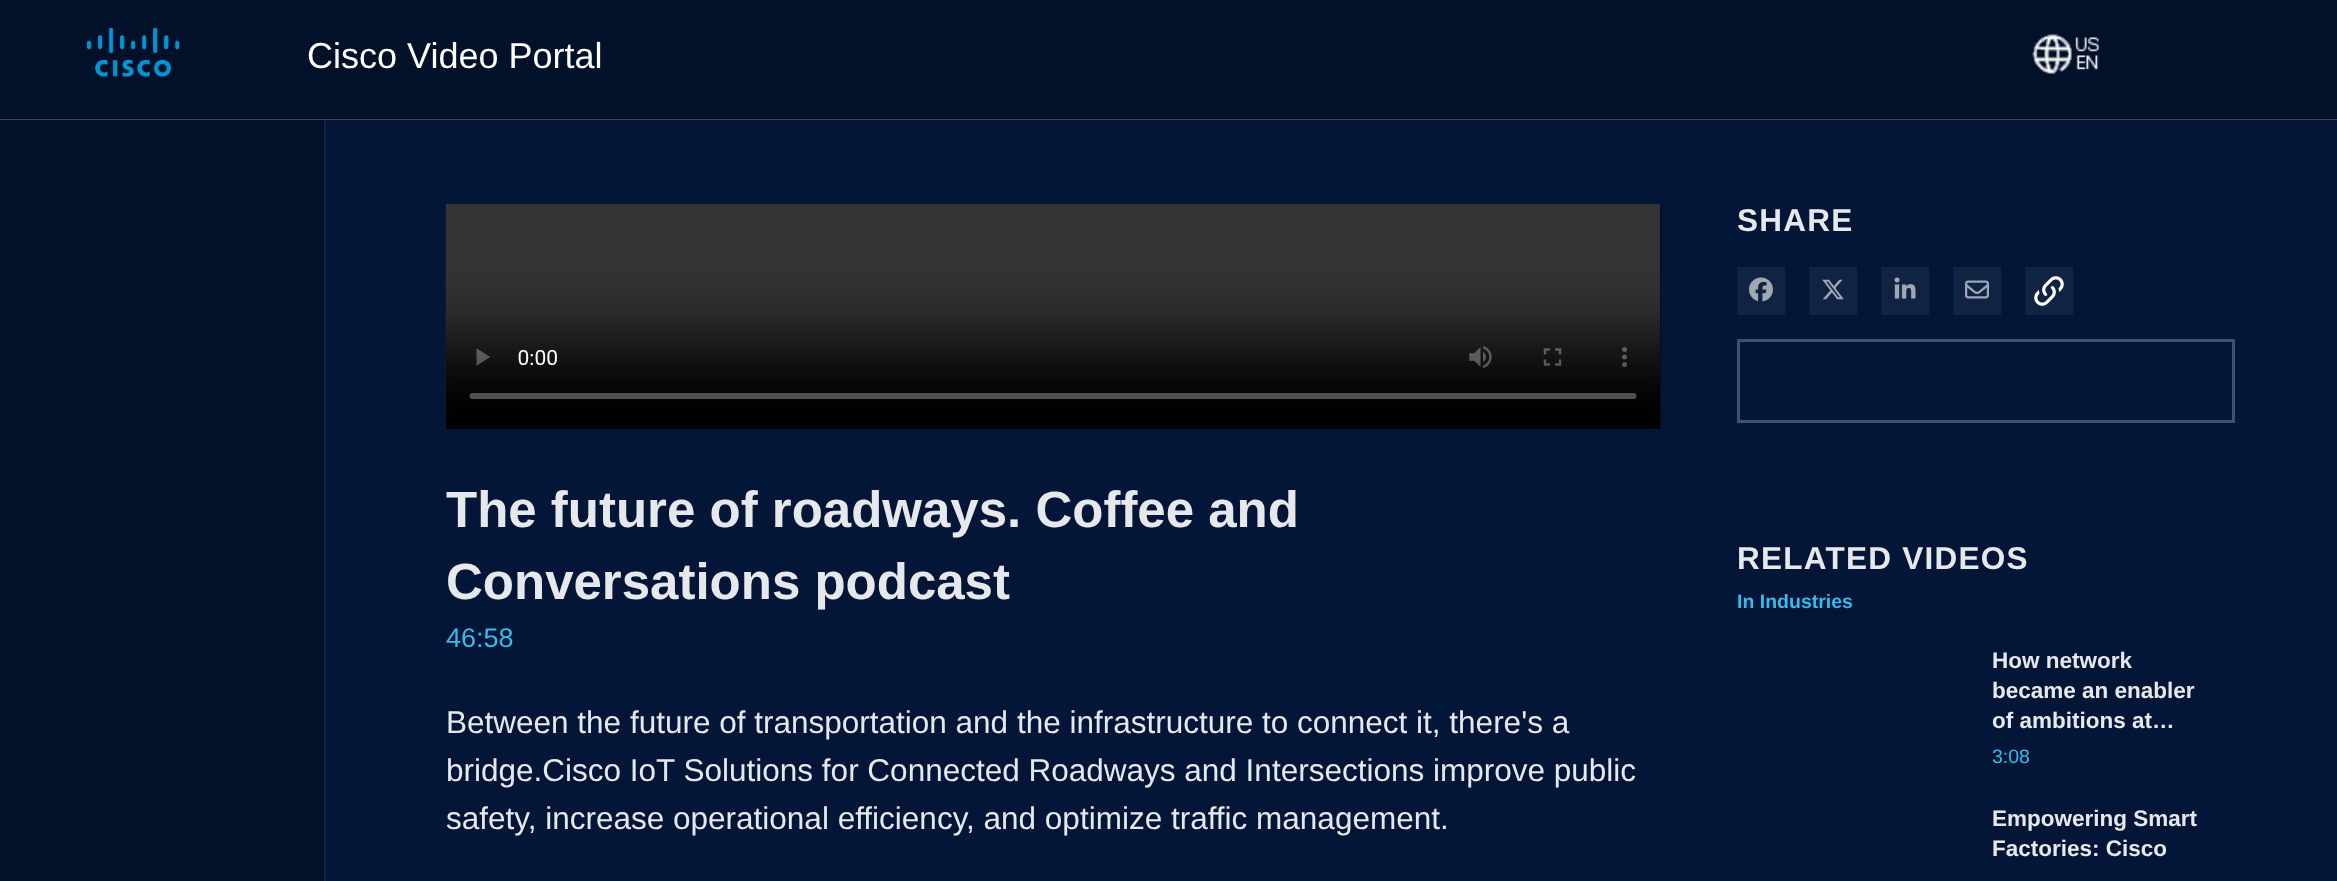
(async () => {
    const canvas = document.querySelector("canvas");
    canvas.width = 2337;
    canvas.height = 881;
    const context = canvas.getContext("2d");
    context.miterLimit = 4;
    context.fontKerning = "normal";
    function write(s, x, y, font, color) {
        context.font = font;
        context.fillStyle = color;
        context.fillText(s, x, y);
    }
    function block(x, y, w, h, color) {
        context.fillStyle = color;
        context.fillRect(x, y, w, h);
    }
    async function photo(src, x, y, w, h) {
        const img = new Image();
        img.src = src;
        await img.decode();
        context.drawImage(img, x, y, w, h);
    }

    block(0, 0, 2337, 881, "rgb(2, 17, 42)");
    block(0, 119, 2337, 1, "rgb(68, 68, 68)");
    await photo("media/1.png", 87, 27, 93, 50);
    write("Cisco Video Portal", 307, 68, "36px Liberation Sans", "rgb(255, 255, 255)");
    await photo("media/2.png", 2032, 34, 68, 40);
    block(324, 120, 2, 761, "rgb(22, 36, 59)");
    block(326, 120, 2011, 761, "rgb(3, 22, 55)");
    block(1660, 204, 1, 225, "rgb(0, 0, 0)");
    await photo("media/3.png", 445, 204, 1216, 225);
    context.letterSpacing = "1.25px";
    write("SHARE", 1737, 231, "bold 31.5px Liberation Sans", "rgb(230, 232, 235)");
    block(1737, 267, 48, 48, "rgb(17, 35, 66)");
    await photo("media/4.png", 1749, 277, 24, 25);
    block(1809, 267, 48, 48, "rgb(17, 35, 66)");
    await photo("media/5.png", 1822, 279, 22, 21);
    block(1881, 267, 48, 48, "rgb(17, 35, 66)");
    await photo("media/6.png", 1894, 277, 22, 22);
    block(1953, 267, 48, 48, "rgb(17, 35, 66)");
    await photo("media/7.png", 1965, 280, 24, 19);
    block(2025, 267, 48, 48, "rgb(17, 35, 66)");
    await photo("media/8.png", 2034, 276, 30, 30);
    context.strokeStyle = "rgb(66, 80, 105)";
    context.lineWidth = 3;
    context.strokeRect(1738.5, 340.5, 495, 81);
    write("RELATED VIDEOS", 1737, 569, "bold 31.5px Liberation Sans", "rgb(230, 232, 235)");
    context.letterSpacing = "0px";
    write("In Industries", 1737, 608, "bold 19.5px Liberation Sans", "rgb(52, 188, 235)");
    write("How network", 1992, 668, "bold 22.5px Liberation Sans", "rgb(230, 232, 235)");
    write("became an enabler", 1992, 698, "bold 22.5px Liberation Sans", "rgb(230, 232, 235)");
    write("of ambitions at…", 1992, 728, "bold 22.5px Liberation Sans", "rgb(230, 232, 235)");
    write("3:08", 1992, 763, "19.5px Liberation Sans", "rgb(52, 188, 235)");
    write("Empowering Smart", 1992, 826, "bold 22.5px Liberation Sans", "rgb(230, 232, 235)");
    write("Factories: Cisco", 1992, 856, "bold 22.5px Liberation Sans", "rgb(230, 232, 235)");
    write("The future of roadways. Coffee and", 446, 527, "bold 51px Liberation Sans", "rgb(230, 232, 235)");
    write("Conversations podcast", 446, 599, "bold 51px Liberation Sans", "rgb(230, 232, 235)");
    write("46:58", 446, 647, "27px Liberation Sans", "rgb(52, 188, 235)");
    write("Between the future of transportation and the infrastructure to connect it, there's a", 446, 733, "31.5px Liberation Sans", "rgb(230, 232, 235)");
    write("bridge.Cisco IoT Solutions for Connected Roadways and Intersections improve public", 446, 781, "31.5px Liberation Sans", "rgb(230, 232, 235)");
    write("safety, increase operational efficiency, and optimize traffic management.", 446, 829, "31.5px Liberation Sans", "rgb(230, 232, 235)");
})();
